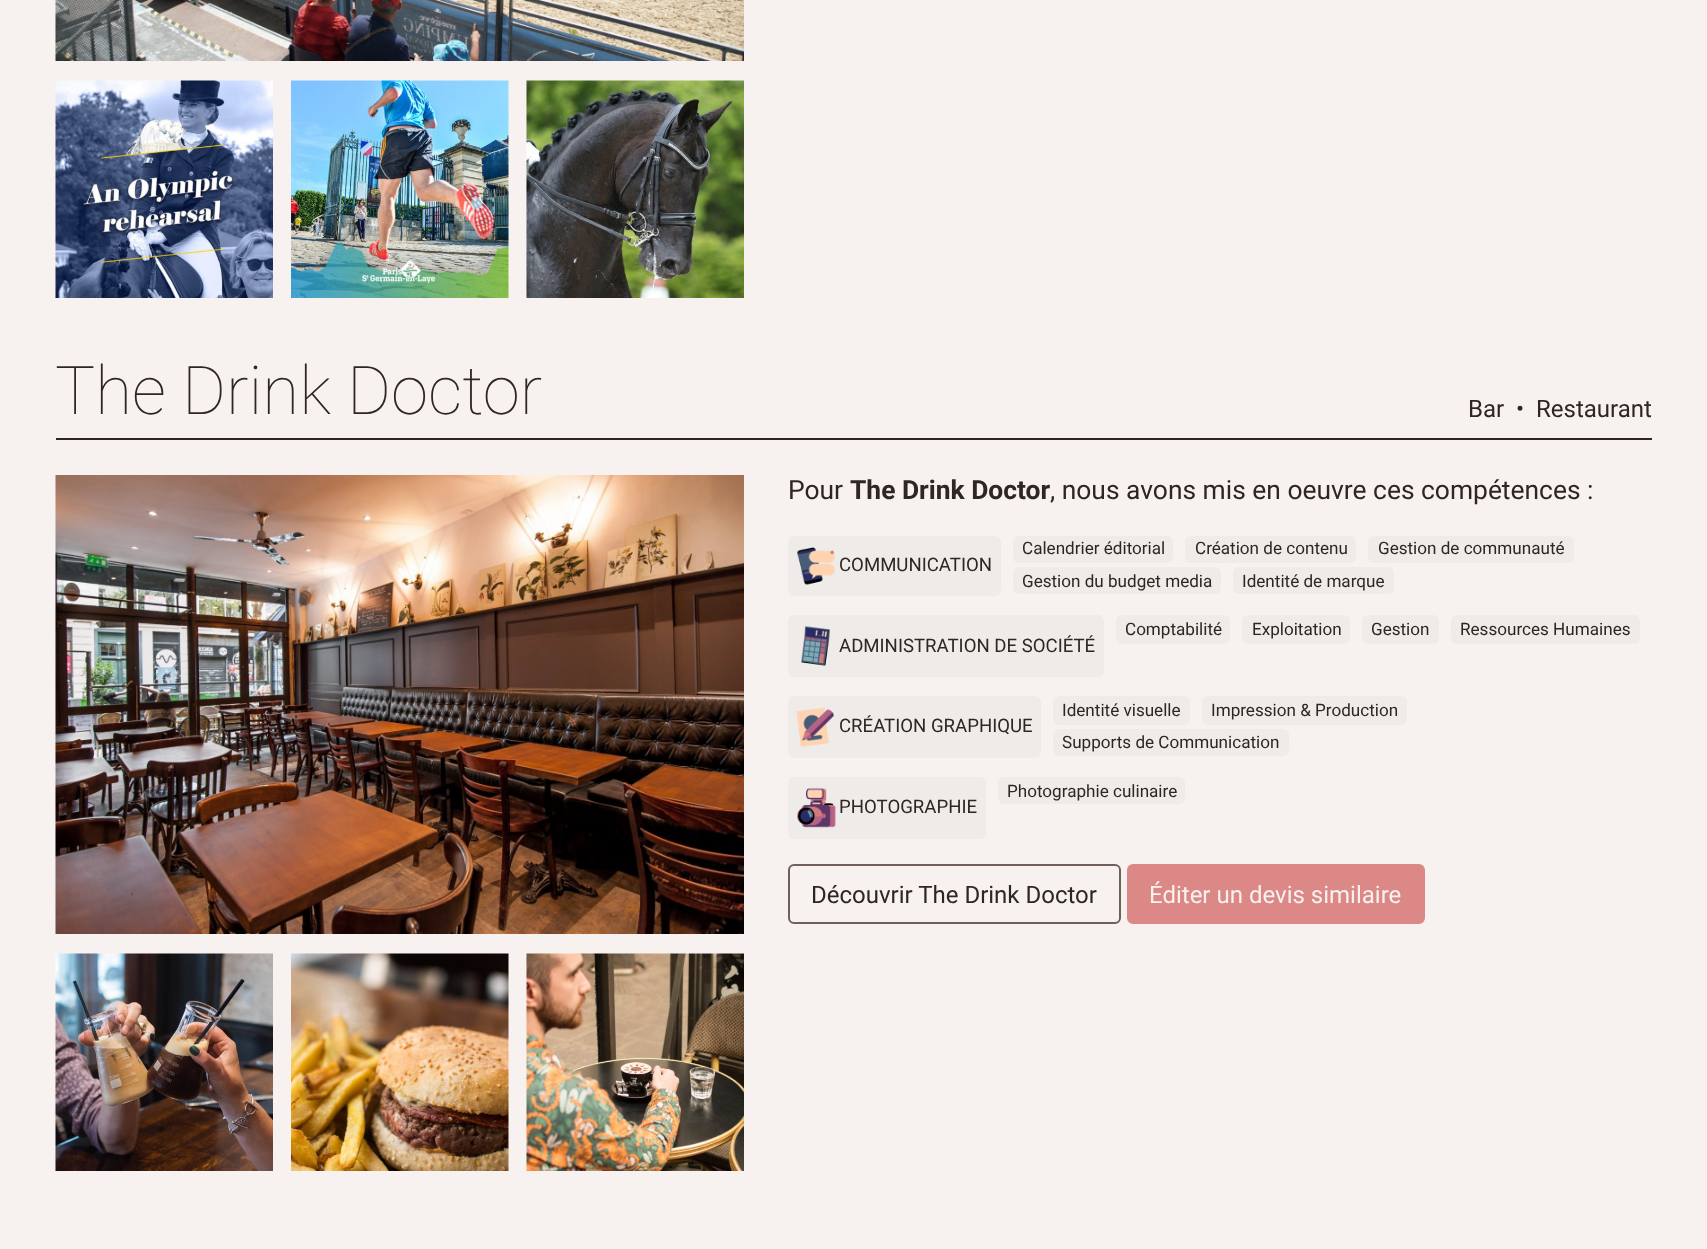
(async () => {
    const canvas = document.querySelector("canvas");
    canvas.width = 1707;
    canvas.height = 1249;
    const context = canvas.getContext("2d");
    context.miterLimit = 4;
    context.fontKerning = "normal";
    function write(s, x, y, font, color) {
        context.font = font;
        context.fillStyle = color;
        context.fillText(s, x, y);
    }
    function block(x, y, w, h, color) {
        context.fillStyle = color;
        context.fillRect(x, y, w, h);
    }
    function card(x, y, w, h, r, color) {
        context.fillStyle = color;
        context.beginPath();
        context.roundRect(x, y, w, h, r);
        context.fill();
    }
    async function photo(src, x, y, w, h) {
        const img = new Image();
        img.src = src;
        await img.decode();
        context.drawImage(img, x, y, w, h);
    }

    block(0, 0, 1707, 1249, "rgb(247, 242, 239)");
    await photo("media/1.png", 55, 0, 689, 61);
    await photo("media/2.png", 55, 80, 218, 218);
    await photo("media/3.png", 291, 80, 218, 218);
    await photo("media/4.png", 526, 80, 218, 218);
    write("The Drink Doctor", 55, 414, "100 67.25px Roboto", "rgb(46, 38, 34)");
    write("Bar", 1468, 417, "24px Roboto", "rgb(46, 38, 34)");
    write("•", 1516, 417, "24px Roboto", "rgb(46, 38, 34)");
    write("Restaurant", 1536, 417, "24px Roboto", "rgb(46, 38, 34)");
    block(56, 438, 1596, 2, "rgb(46, 38, 34)");
    await photo("media/5.png", 55, 475, 689, 459);
    await photo("media/6.png", 55, 953, 218, 218);
    await photo("media/7.png", 291, 953, 218, 218);
    await photo("media/8.png", 526, 953, 218, 218);
    write("Pour", 788, 499, "26.4px Roboto", "rgb(46, 38, 34)");
    write("The Drink Doctor", 850, 499, "bold 26.4px Roboto", "rgb(46, 38, 34)");
    write(", nous avons mis en oeuvre ces compétences :", 1050, 499, "26.4px Roboto", "rgb(46, 38, 34)");
    card(1013, 536, 160, 27, 6, "rgb(239, 235, 232)");
    write("Calendrier éditorial", 1022, 554, "17.1px Roboto", "rgb(46, 38, 34)");
    card(1185, 536, 171, 27, 6, "rgb(239, 235, 232)");
    write("Création de contenu", 1195, 554, "17.1px Roboto", "rgb(46, 38, 34)");
    card(1368, 536, 206, 27, 6, "rgb(239, 235, 232)");
    write("Gestion de communauté", 1378, 554, "17.1px Roboto", "rgb(46, 38, 34)");
    card(788, 536, 213, 60, 6, "rgb(239, 235, 232)");
    await photo("media/9.png", 797, 547, 38, 38);
    write("COMMUNICATION", 839, 571, "18.6px Roboto", "rgb(46, 38, 34)");
    card(1013, 567, 208, 27, 6, "rgb(239, 235, 232)");
    write("Gestion du budget media", 1022, 587, "17.1px Roboto", "rgb(46, 38, 34)");
    card(1233, 567, 161, 27, 6, "rgb(239, 235, 232)");
    write("Identité de marque", 1242, 587, "17.1px Roboto", "rgb(46, 38, 34)");
    card(1116, 615, 114, 29, 6, "rgb(239, 235, 232)");
    write("Comptabilité", 1125, 635, "17.1px Roboto", "rgb(46, 38, 34)");
    card(1242, 615, 108, 29, 6, "rgb(239, 235, 232)");
    write("Exploitation", 1252, 635, "17.1px Roboto", "rgb(46, 38, 34)");
    card(1362, 615, 77, 29, 6, "rgb(239, 235, 232)");
    write("Gestion", 1371, 635, "17.1px Roboto", "rgb(46, 38, 34)");
    card(1451, 615, 189, 29, 6, "rgb(239, 235, 232)");
    write("Ressources Humaines", 1460, 635, "17.1px Roboto", "rgb(46, 38, 34)");
    card(788, 615, 316, 62, 6, "rgb(239, 235, 232)");
    await photo("media/10.png", 801, 626, 30, 40);
    write("ADMINISTRATION DE SOCIÉTÉ", 839, 652, "18.6px Roboto", "rgb(46, 38, 34)");
    card(1053, 696, 137, 29, 6, "rgb(239, 235, 232)");
    write("Identité visuelle", 1062, 716, "17.1px Roboto", "rgb(46, 38, 34)");
    card(1202, 696, 205, 29, 6, "rgb(239, 235, 232)");
    write("Impression & Production", 1211, 716, "17.1px Roboto", "rgb(46, 38, 34)");
    card(788, 696, 253, 62, 6, "rgb(239, 235, 232)");
    await photo("media/11.png", 796, 707, 38, 40);
    write("CRÉATION GRAPHIQUE", 839, 732, "18.6px Roboto", "rgb(46, 38, 34)");
    card(1053, 729, 236, 27, 6, "rgb(239, 235, 232)");
    write("Supports de Communication", 1062, 748, "17.1px Roboto", "rgb(46, 38, 34)");
    card(998, 777, 187, 27, 6, "rgb(239, 235, 232)");
    write("Photographie culinaire", 1007, 797, "17.1px Roboto", "rgb(46, 38, 34)");
    card(788, 777, 198, 62, 6, "rgb(239, 235, 232)");
    await photo("media/12.png", 797, 788, 39, 40);
    write("PHOTOGRAPHIE", 839, 813, "18.6px Roboto", "rgb(46, 38, 34)");
    context.beginPath();
    context.roundRect(789, 865, 331, 58, 5);
    context.strokeStyle = "rgb(113, 96, 89)";
    context.lineWidth = 2;
    context.stroke();
    write("Découvrir The Drink Doctor", 811, 903, "24px Roboto", "rgb(46, 38, 34)");
    context.fillStyle = "rgb(219, 136, 134)";
    context.beginPath();
    context.roundRect(1128, 865, 296, 58, 5);
    context.fill();
    context.strokeStyle = "rgb(219, 136, 134)";
    context.stroke();
    write("Éditer un devis similaire", 1149, 903, "24px Roboto", "rgb(247, 242, 239)");
})();
